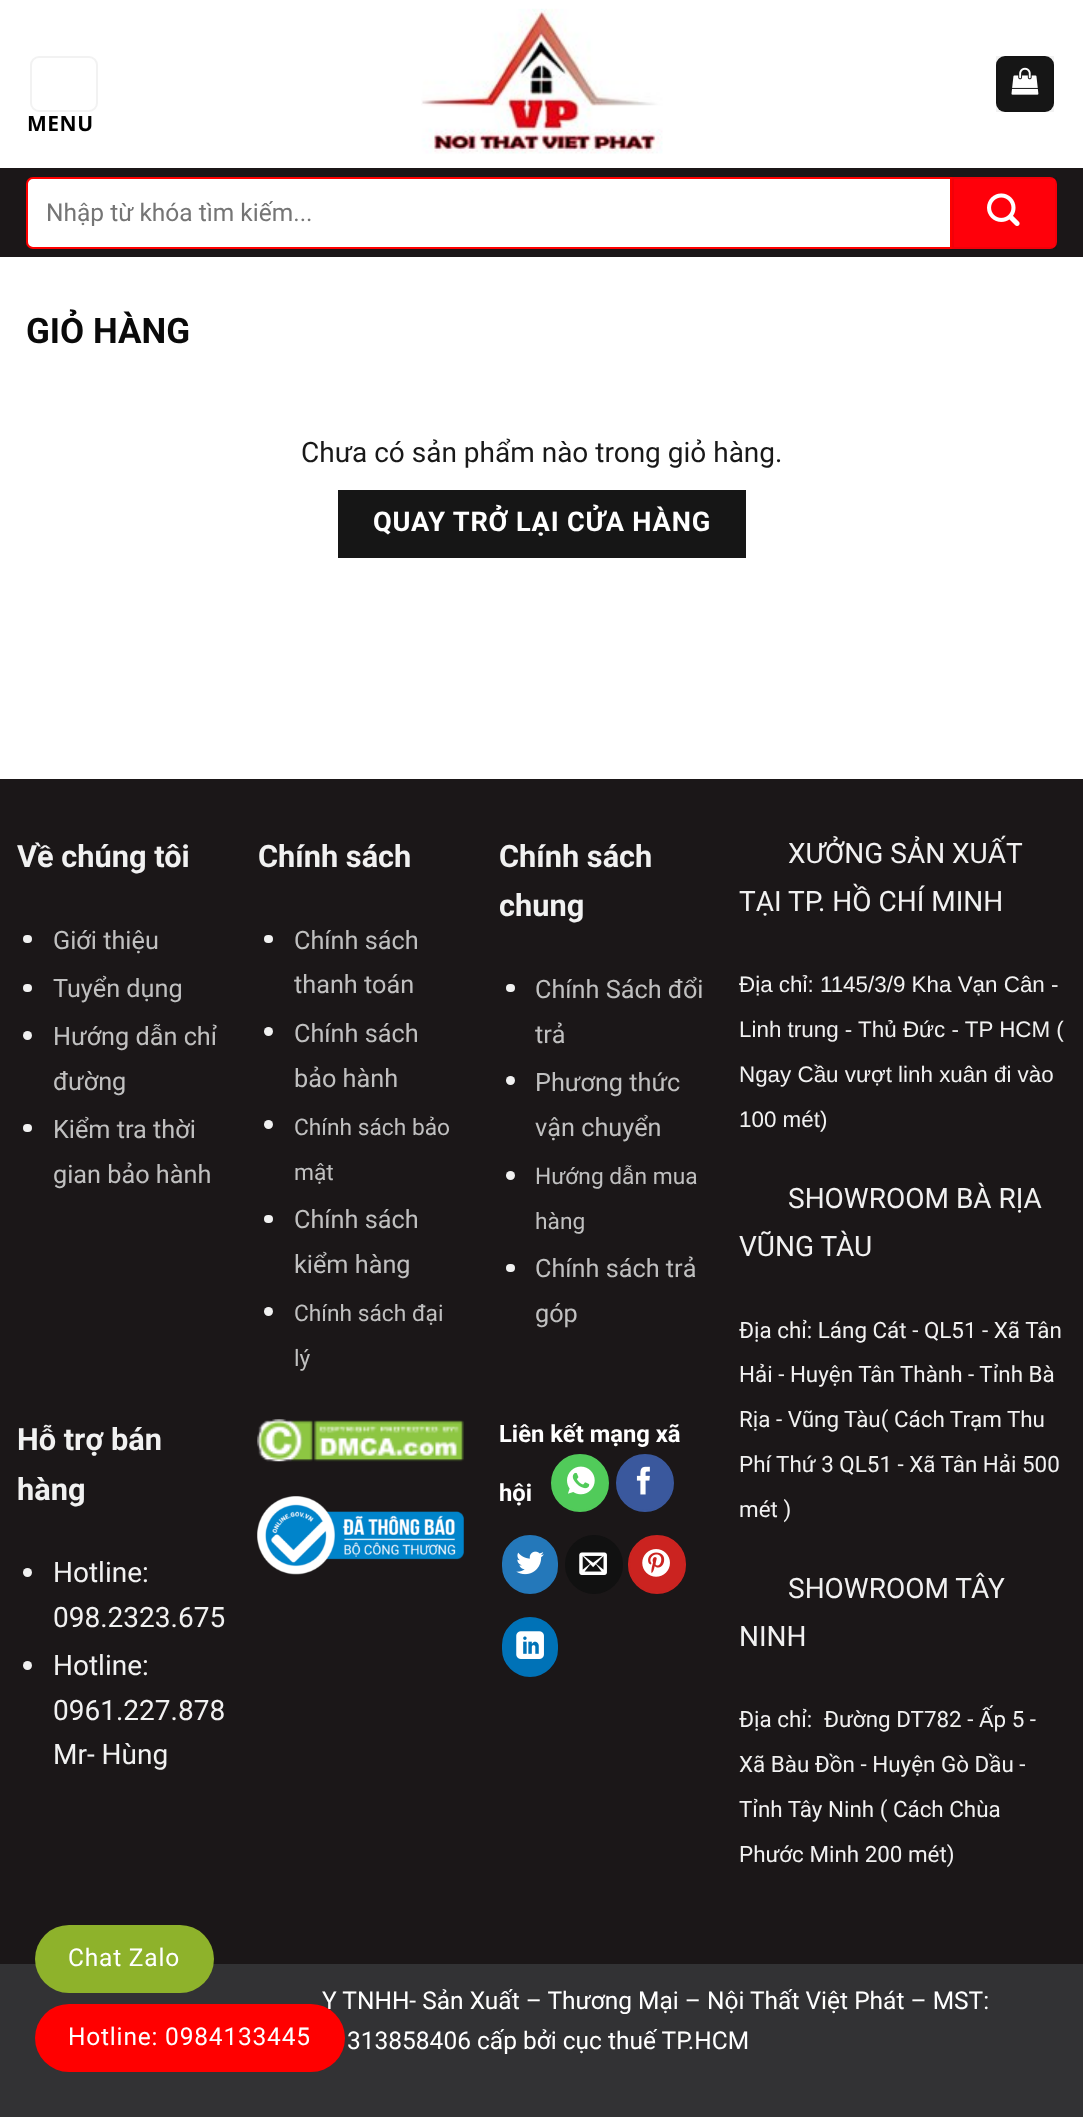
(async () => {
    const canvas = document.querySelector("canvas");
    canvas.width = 1083;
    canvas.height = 2117;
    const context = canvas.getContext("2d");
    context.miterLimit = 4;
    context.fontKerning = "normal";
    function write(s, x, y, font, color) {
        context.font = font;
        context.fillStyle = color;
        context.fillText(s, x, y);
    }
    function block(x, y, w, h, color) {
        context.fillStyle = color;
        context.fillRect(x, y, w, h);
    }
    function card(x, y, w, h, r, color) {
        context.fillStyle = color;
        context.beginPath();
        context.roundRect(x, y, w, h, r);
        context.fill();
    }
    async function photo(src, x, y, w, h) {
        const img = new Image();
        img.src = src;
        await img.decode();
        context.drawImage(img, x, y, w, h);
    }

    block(0, 0, 1083, 2117, "rgb(50, 50, 52)");
    block(0, 0, 1083, 779, "rgb(255, 255, 255)");
    await photo("media/1.png", 421, 8, 242, 146);
    card(996, 56, 58, 56, 9, "rgb(22, 22, 22)");
    context.strokeStyle = "rgba(0, 0, 0, 0.05)";
    context.lineWidth = 2;
    context.strokeRect(997, 57, 56, 54);
    await photo("media/2.png", 1011, 67, 28, 28);
    context.beginPath();
    context.roundRect(31, 57, 66, 54, 8);
    context.strokeStyle = "rgb(242, 242, 242)";
    context.stroke();
    context.letterSpacing = "0.5px";
    write("MENU", 27, 131, "bold 21px Noto Sans", "rgb(0, 0, 0)");
    block(0, 168, 1083, 89, "rgb(27, 23, 24)");
    context.fillStyle = "rgb(255, 255, 255)";
    context.beginPath();
    context.roundRect(27, 178, 924, 70, [6, 0, 0, 6]);
    context.fill();
    context.strokeStyle = "rgb(255, 0, 0)";
    context.stroke();
    context.letterSpacing = "0px";
    write("Nhập từ khóa tìm kiếm...", 46, 221, "24.5px Roboto", "rgb(117, 117, 117)");
    context.fillStyle = "rgb(255, 0, 10)";
    context.beginPath();
    context.roundRect(952, 177, 105, 72, [0, 7, 7, 0]);
    context.fill();
    context.strokeStyle = "rgba(0, 0, 0, 0.05)";
    context.strokeRect(953, 178, 103, 70);
    await photo("media/3.png", 987, 193, 33, 33);
    write("GIỎ HÀNG", 26, 343, "bold 35px Roboto", "rgb(10, 10, 10)");
    write("Chưa có sản phẩm nào trong giỏ hàng.", 301, 462, "28px Roboto", "rgb(25, 25, 25)");
    block(338, 490, 408, 68, "rgb(22, 22, 22)");
    context.letterSpacing = "0.8px";
    write("QUAY TRỞ LẠI CỬA HÀNG", 373, 531, "bold 27.2px Roboto", "rgb(255, 255, 255)");
    block(0, 779, 1083, 1185, "rgb(27, 23, 24)");
    context.letterSpacing = "0px";
    write("Về chúng tôi", 17, 867, "bold 30.75px Roboto", "rgb(241, 241, 241)");
    card(23, 935, 9, 8, 4, "rgb(241, 241, 241)");
    write("Giới thiệu", 53, 949, "25.25px Roboto", "rgb(192, 192, 192)");
    card(23, 984, 9, 8, 4, "rgb(241, 241, 241)");
    write("Tuyển dụng", 53, 997, "25.25px Roboto", "rgb(192, 192, 192)");
    context.fillStyle = "rgb(241, 241, 241)";
    context.beginPath();
    context.arc(27.5, 1035.5, 4.5, 0, Math.PI * 2);
    context.fill();
    write("Hướng dẫn chỉ", 53, 1045, "25.25px Roboto", "rgb(192, 192, 192)");
    write("đường", 53, 1090, "25.25px Roboto", "rgb(192, 192, 192)");
    card(23, 1124, 9, 8, 4, "rgb(241, 241, 241)");
    write("Kiểm tra thời", 53, 1138, "25.25px Roboto", "rgb(192, 192, 192)");
    write("gian bảo hành", 53, 1183, "25.25px Roboto", "rgb(192, 192, 192)");
    write("Chính sách", 258, 867, "bold 30.75px Roboto", "rgb(241, 241, 241)");
    card(264, 935, 9, 8, 4, "rgb(241, 241, 241)");
    write("Chính sách", 294, 949, "25.25px Roboto", "rgb(192, 192, 192)");
    write("thanh toán", 294, 993, "25.25px Roboto", "rgb(192, 192, 192)");
    context.fillStyle = "rgb(241, 241, 241)";
    context.beginPath();
    context.arc(268.5, 1031.5, 4.5, 0, Math.PI * 2);
    context.fill();
    write("Chính sách", 294, 1042, "25.25px Roboto", "rgb(192, 192, 192)");
    write("bảo hành", 294, 1087, "25.25px Roboto", "rgb(192, 192, 192)");
    context.fillStyle = "rgb(241, 241, 241)";
    context.beginPath();
    context.arc(268.5, 1124.5, 4.5, 0, Math.PI * 2);
    context.fill();
    write("Chính sách bảo", 294, 1135, "22.75px Roboto", "rgb(192, 192, 192)");
    write("mật", 294, 1180, "22.75px Roboto", "rgb(192, 192, 192)");
    card(264, 1215, 9, 8, 4, "rgb(241, 241, 241)");
    write("Chính sách", 294, 1228, "25.25px Roboto", "rgb(192, 192, 192)");
    write("kiểm hàng", 294, 1273, "25.25px Roboto", "rgb(192, 192, 192)");
    context.fillStyle = "rgb(241, 241, 241)";
    context.beginPath();
    context.arc(268.5, 1311.5, 4.5, 0, Math.PI * 2);
    context.fill();
    write("Chính sách đại", 294, 1321, "22.75px Roboto", "rgb(192, 192, 192)");
    write("lý", 294, 1366, "22.75px Roboto", "rgb(192, 192, 192)");
    write("Chính sách", 499, 867, "bold 30.75px Roboto", "rgb(241, 241, 241)");
    write("chung", 499, 916, "bold 30.75px Roboto", "rgb(241, 241, 241)");
    card(506, 984, 9, 8, 4, "rgb(241, 241, 241)");
    write("Chính Sách đổi", 535, 998, "25.25px Roboto", "rgb(192, 192, 192)");
    write("trả", 535, 1043, "25.25px Roboto", "rgb(192, 192, 192)");
    context.fillStyle = "rgb(241, 241, 241)";
    context.beginPath();
    context.arc(510.5, 1080.5, 4.5, 0, Math.PI * 2);
    context.fill();
    write("Phương thức", 535, 1091, "25.25px Roboto", "rgb(192, 192, 192)");
    write("vận chuyển", 535, 1136, "25.25px Roboto", "rgb(192, 192, 192)");
    context.fillStyle = "rgb(241, 241, 241)";
    context.beginPath();
    context.arc(510.5, 1175.5, 4.5, 0, Math.PI * 2);
    context.fill();
    write("Hướng dẫn mua", 535, 1184, "22.75px Roboto", "rgb(192, 192, 192)");
    write("hàng", 535, 1229, "22.75px Roboto", "rgb(192, 192, 192)");
    card(506, 1264, 9, 8, 4, "rgb(241, 241, 241)");
    write("Chính sách trả", 535, 1277, "25.25px Roboto", "rgb(192, 192, 192)");
    write("góp", 535, 1322, "25.25px Roboto", "rgb(192, 192, 192)");
    write("Hỗ trợ bán", 17, 1450, "bold 30.75px Roboto", "rgb(241, 241, 241)");
    write("hàng", 17, 1500, "bold 30.75px Roboto", "rgb(241, 241, 241)");
    context.beginPath();
    context.arc(27.5, 1572.5, 4.5, 0, Math.PI * 2);
    context.fill();
    write("Hotline:", 53, 1582, "28px Roboto", "rgb(241, 241, 241)");
    write("098.2323.675", 53, 1627, "28px Roboto", "rgb(241, 241, 241)");
    context.beginPath();
    context.arc(27.5, 1665.5, 4.5, 0, Math.PI * 2);
    context.fill();
    write("Hotline:", 53, 1675, "28px Roboto", "rgb(241, 241, 241)");
    write("0961.227.878", 53, 1720, "28px Roboto", "rgb(241, 241, 241)");
    write("Mr- Hùng", 53, 1764, "28px Roboto", "rgb(241, 241, 241)");
    await photo("media/4.png", 257, 1419, 207, 43);
    await photo("media/5.png", 257, 1496, 207, 79);
    write("Liên kết mạng xã", 499, 1442, "bold 23.75px Roboto", "rgb(255, 255, 255)");
    write("hội", 499, 1501, "bold 23.75px Roboto", "rgb(255, 255, 255)");
    context.fillStyle = "rgb(81, 203, 90)";
    context.beginPath();
    context.arc(580, 1483, 28, 0, Math.PI * 2);
    context.fill();
    context.strokeStyle = "rgb(81, 203, 90)";
    context.stroke();
    await photo("media/6.png", 567, 1466, 28, 29);
    context.fillStyle = "rgb(58, 88, 157)";
    context.beginPath();
    context.arc(645, 1483, 28, 0, Math.PI * 2);
    context.fill();
    context.strokeStyle = "rgb(58, 88, 157)";
    context.stroke();
    await photo("media/7.png", 636, 1466, 14, 29);
    context.fillStyle = "rgb(36, 120, 186)";
    context.beginPath();
    context.roundRect(503, 1536, 54, 57, 27);
    context.fill();
    context.strokeStyle = "rgb(36, 120, 186)";
    context.stroke();
    await photo("media/8.png", 516, 1551, 28, 24);
    card(565, 1535, 58, 59, 29, "rgb(17, 17, 17)");
    await photo("media/9.png", 579, 1552, 28, 23);
    context.fillStyle = "rgb(203, 35, 32)";
    context.beginPath();
    context.roundRect(629, 1536, 56, 57, 28);
    context.fill();
    context.strokeStyle = "rgb(203, 35, 32)";
    context.stroke();
    await photo("media/10.png", 642, 1549, 28, 28);
    context.fillStyle = "rgb(0, 114, 183)";
    context.beginPath();
    context.roundRect(503, 1618, 54, 58, 27);
    context.fill();
    context.strokeStyle = "rgb(0, 114, 183)";
    context.stroke();
    await photo("media/11.png", 516, 1631, 28, 28);
    write("XƯỞNG SẢN XUẤT", 788, 863, "28px Roboto", "rgb(241, 241, 241)");
    write("TẠI TP. HỒ CHÍ MINH", 739, 911, "28px Roboto", "rgb(241, 241, 241)");
    write("Địa chỉ: 1145/3/9 Kha Vạn Cân -", 739, 992, "22.4px Liberation Sans", "rgb(241, 241, 241)");
    write("Linh trung - Thủ Đức - TP HCM (", 739, 1037, "22.4px Liberation Sans", "rgb(241, 241, 241)");
    write("Ngay Cầu vượt linh xuân đi vào", 739, 1082, "22.4px Liberation Sans", "rgb(241, 241, 241)");
    write("100 mét)", 739, 1127, "22.4px Liberation Sans", "rgb(241, 241, 241)");
    write("SHOWROOM BÀ RỊA", 788, 1208, "28px Roboto", "rgb(241, 241, 241)");
    write("VŨNG TÀU", 739, 1256, "28px Roboto", "rgb(241, 241, 241)");
    write("Địa chỉ: Láng Cát - QL51 - Xã Tân", 739, 1338, "22.4px Roboto", "rgb(241, 241, 241)");
    write("Hải - Huyện Tân Thành - Tỉnh Bà", 739, 1382, "22.4px Roboto", "rgb(241, 241, 241)");
    write("Rịa - Vũng Tàu( Cách Trạm Thu", 739, 1427, "22.4px Roboto", "rgb(241, 241, 241)");
    write("Phí Thứ 3 QL51 - Xã Tân Hải 500", 739, 1472, "22.4px Roboto", "rgb(241, 241, 241)");
    write("mét )", 739, 1517, "22.4px Roboto", "rgb(241, 241, 241)");
    write("SHOWROOM TÂY", 788, 1598, "28px Roboto", "rgb(241, 241, 241)");
    write("NINH", 739, 1646, "28px Roboto", "rgb(241, 241, 241)");
    write("Địa chỉ:", 739, 1727, "22.4px Roboto", "rgb(241, 241, 241)");
    write("Đường DT782 - Ấp 5 -", 824, 1727, "22.4px Roboto", "rgb(241, 241, 241)");
    write("Xã Bàu Đồn - Huyện Gò Dầu -", 739, 1772, "22.4px Roboto", "rgb(241, 241, 241)");
    write("Tỉnh Tây Ninh ( Cách Chùa", 739, 1817, "22.4px Roboto", "rgb(241, 241, 241)");
    write("Phước Minh 200 mét)", 739, 1862, "22.4px Roboto", "rgb(241, 241, 241)");
    write("Y TNHH- Sản Xuất – Thương Mại – Nội Thất Việt Phát – MST:", 322, 2009, "24.5px Roboto", "rgb(255, 255, 255)");
    write("313858406 cấp bởi cục thuế TP.HCM", 347, 2049, "24.5px Roboto", "rgb(255, 255, 255)");
    card(35, 1925, 179, 68, 34, "rgb(142, 178, 43)");
    context.letterSpacing = "0.8px";
    write("Chat Zalo", 68, 1966, "24.5px Roboto", "rgb(255, 255, 255)");
    card(35, 2004, 310, 68, 34, "rgb(255, 0, 0)");
    write("Hotline: 0984133445", 68, 2045, "24.5px Roboto", "rgb(255, 255, 255)");
})();
